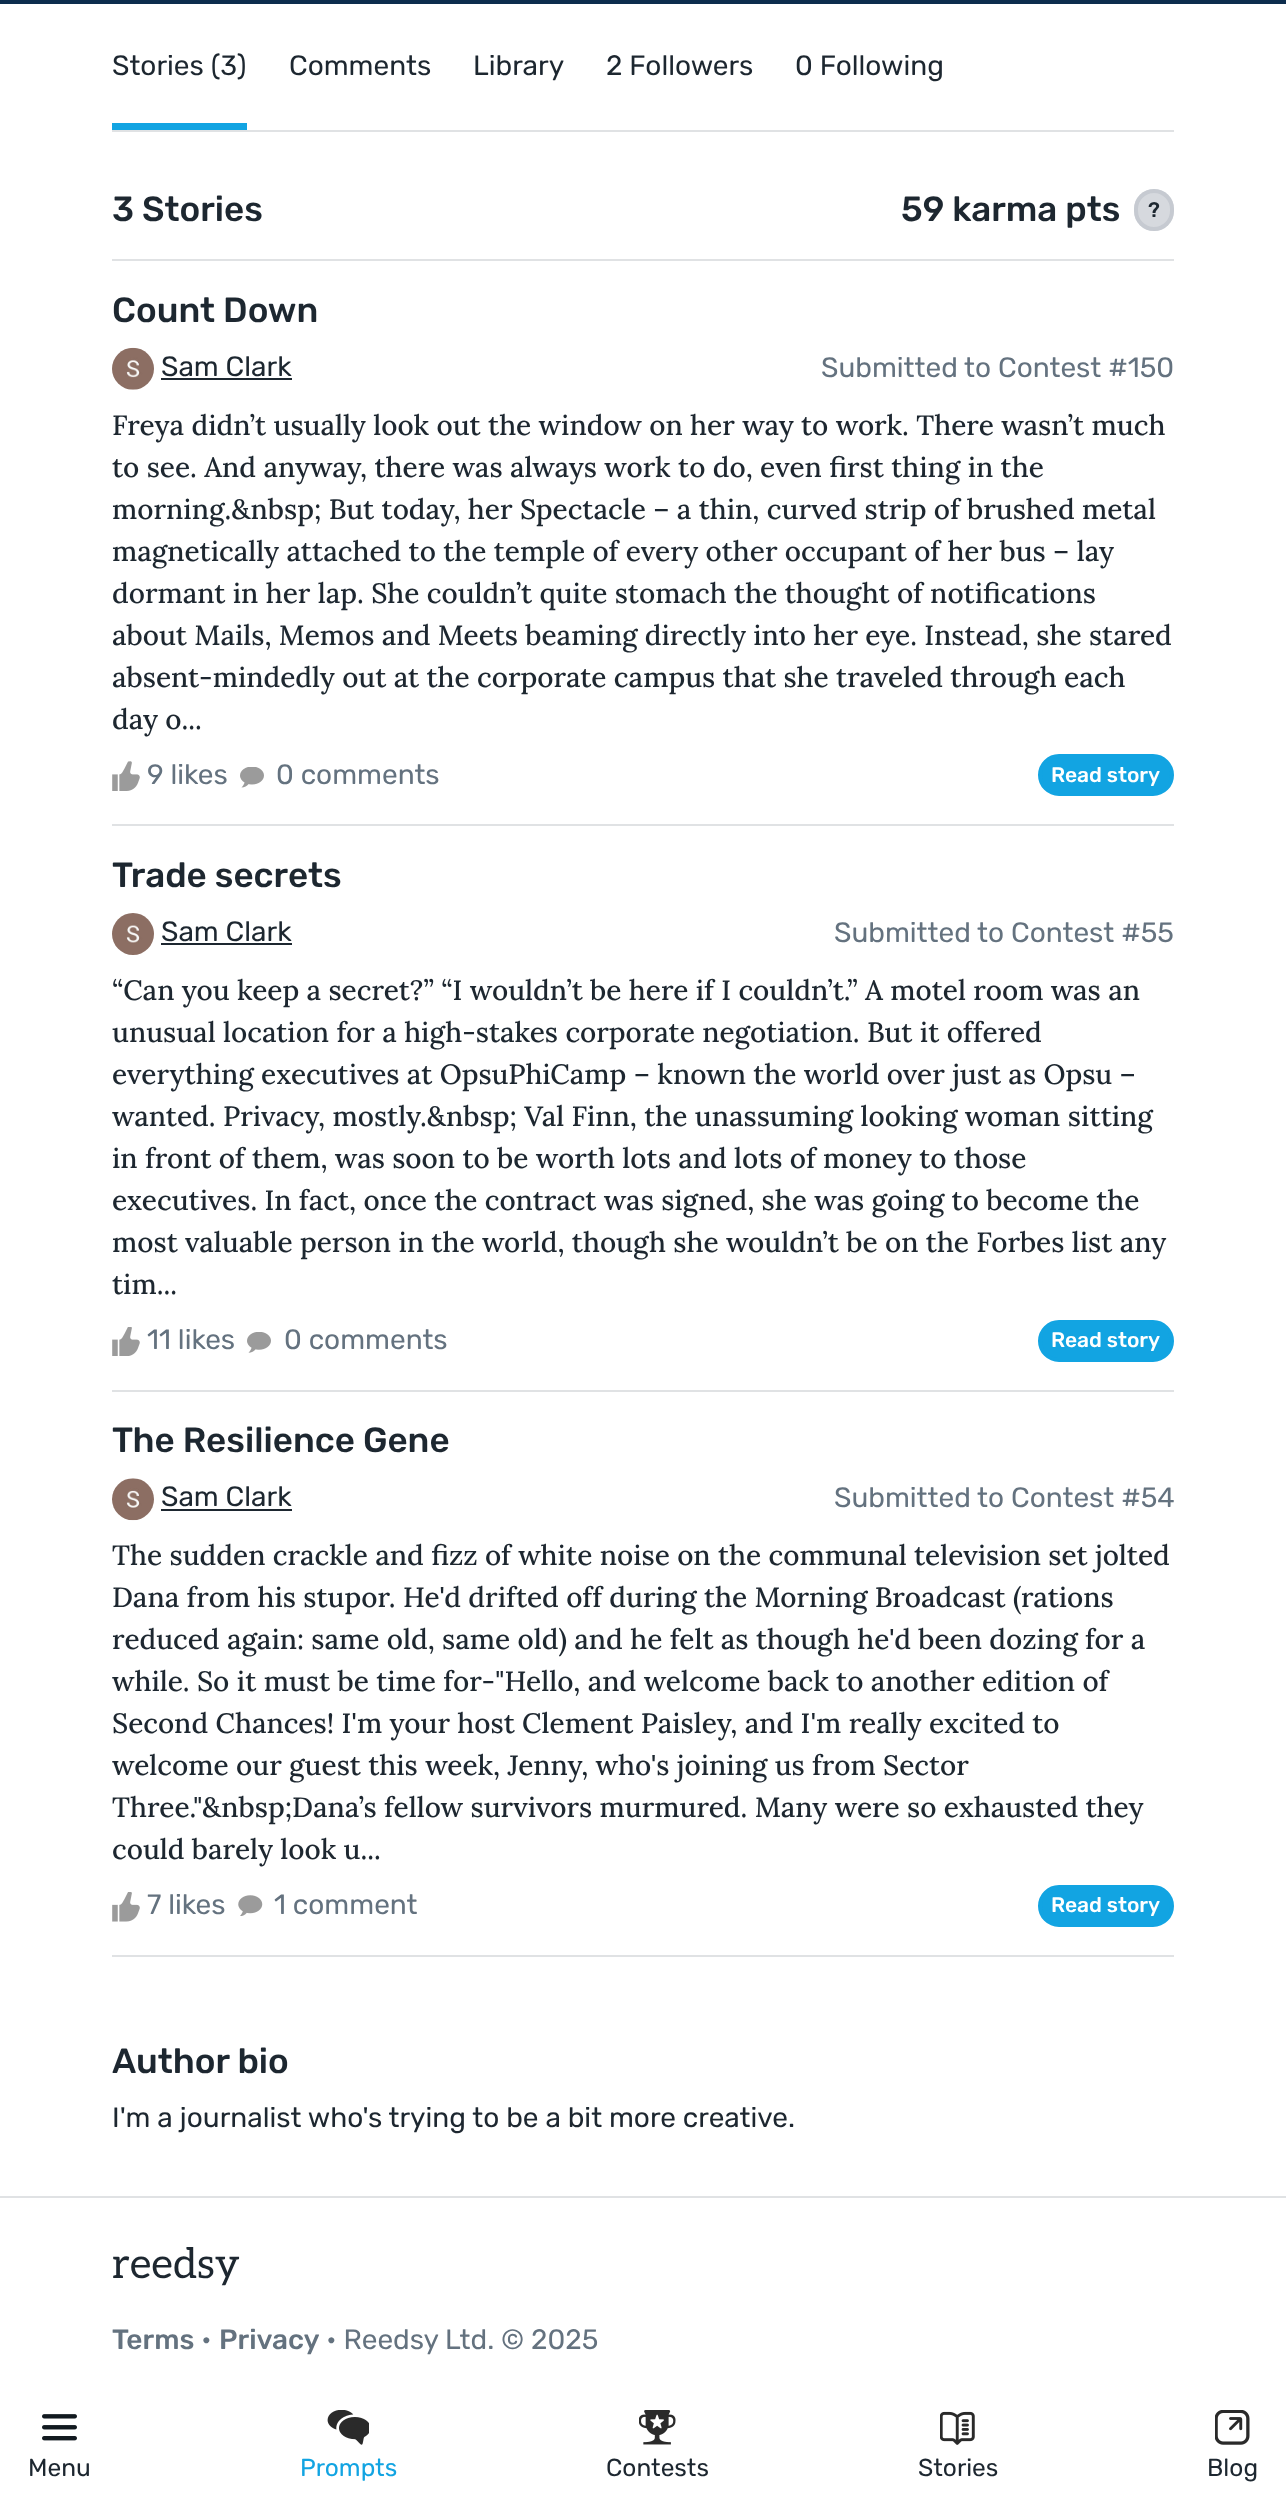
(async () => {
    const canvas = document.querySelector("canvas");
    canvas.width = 1286;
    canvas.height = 2502;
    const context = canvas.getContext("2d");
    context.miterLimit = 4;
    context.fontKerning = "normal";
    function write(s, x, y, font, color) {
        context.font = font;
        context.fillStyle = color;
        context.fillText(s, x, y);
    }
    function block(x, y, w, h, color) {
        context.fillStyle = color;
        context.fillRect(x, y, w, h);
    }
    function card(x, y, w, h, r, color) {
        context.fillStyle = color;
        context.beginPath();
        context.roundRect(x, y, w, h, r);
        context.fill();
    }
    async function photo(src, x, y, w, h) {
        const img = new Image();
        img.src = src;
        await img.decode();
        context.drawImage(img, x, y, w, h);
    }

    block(0, 0, 1286, 2502, "rgb(255, 255, 255)");
    block(112, 130, 1062, 2, "rgb(224, 226, 228)");
    block(112, 123, 135, 7, "rgb(18, 164, 226)");
    write("Stories (3)", 112, 75, "28px Rubik", "rgb(29, 39, 48)");
    write("Comments", 289, 75, "28px Rubik", "rgb(29, 39, 48)");
    write("Library", 473, 75, "28px Rubik", "rgb(29, 39, 48)");
    write("2 Followers", 606, 75, "28px Rubik", "rgb(29, 39, 48)");
    write("0 Following", 795, 75, "28px Rubik", "rgb(29, 39, 48)");
    write("3 Stories", 112, 221, "500 35px Rubik", "rgb(29, 39, 48)");
    write("59 karma pts", 901, 221, "500 35px Rubik", "rgb(29, 39, 48)");
    card(1134, 189, 40, 42, 20, "rgb(214, 217, 222)");
    context.beginPath();
    context.roundRect(1136, 191, 36, 38, 18);
    context.strokeStyle = "rgba(187, 192, 200, 0.6)";
    context.lineWidth = 4;
    context.stroke();
    write("?", 1148, 217, "500 21px Rubik", "rgb(29, 39, 48)");
    block(112, 259, 1062, 2, "rgb(224, 226, 228)");
    write("Count Down", 112, 322, "500 35px Rubik", "rgb(29, 39, 48)");
    await photo("media/1.png", 112, 347, 42, 43);
    write("Sam Clark", 161, 376, "28px Rubik", "rgb(29, 39, 48)");
    block(161, 378, 131, 2, "rgb(29, 39, 48)");
    write("Submitted to Contest #150", 821, 377, "28px Rubik", "rgb(100, 114, 127)");
    write("Freya didn’t usually look out the window on her way to work. There wasn’t much", 112, 435, "500 28px Lora", "rgb(29, 39, 48)");
    write("to see. And anyway, there was always work to do, even first thing in the", 112, 477, "500 28px Lora", "rgb(29, 39, 48)");
    write("morning.&nbsp; But today, her Spectacle – a thin, curved strip of brushed metal", 112, 519, "500 28px Lora", "rgb(29, 39, 48)");
    write("magnetically attached to the temple of every other occupant of her bus – lay", 112, 561, "500 28px Lora", "rgb(29, 39, 48)");
    write("dormant in her lap. She couldn’t quite stomach the thought of notifications", 112, 603, "500 28px Lora", "rgb(29, 39, 48)");
    write("about Mails, Memos and Meets beaming directly into her eye. Instead, she stared", 112, 645, "500 28px Lora", "rgb(29, 39, 48)");
    write("absent-mindedly out at the corporate campus that she traveled through each", 112, 687, "500 28px Lora", "rgb(29, 39, 48)");
    write("day o...", 112, 729, "500 28px Lora", "rgb(29, 39, 48)");
    await photo("media/2.png", 112, 761, 28, 30);
    write("9 likes", 147, 784, "28px Rubik", "rgb(100, 114, 127)");
    await photo("media/3.png", 240, 767, 24, 21);
    write("0 comments", 276, 784, "28px Rubik", "rgb(100, 114, 127)");
    context.fillStyle = "rgb(18, 164, 226)";
    context.beginPath();
    context.roundRect(1040, 756, 132, 38, 19);
    context.fill();
    context.strokeStyle = "rgb(18, 164, 226)";
    context.stroke();
    write("Read story", 1051, 782, "500 21px Rubik", "rgb(255, 255, 255)");
    block(112, 824, 1062, 2, "rgb(224, 226, 228)");
    write("Trade secrets", 112, 887, "500 35px Rubik", "rgb(29, 39, 48)");
    await photo("media/4.png", 112, 913, 42, 42);
    write("Sam Clark", 161, 941, "28px Rubik", "rgb(29, 39, 48)");
    block(161, 943, 131, 2, "rgb(29, 39, 48)");
    write("Submitted to Contest #55", 834, 942, "28px Rubik", "rgb(100, 114, 127)");
    write("“Can you keep a secret?” “I wouldn’t be here if I couldn’t.” A motel room was an", 112, 1000, "500 28px Lora", "rgb(29, 39, 48)");
    write("unusual location for a high-stakes corporate negotiation. But it offered", 112, 1042, "500 28px Lora", "rgb(29, 39, 48)");
    write("everything executives at OpsuPhiCamp – known the world over just as Opsu –", 112, 1084, "500 28px Lora", "rgb(29, 39, 48)");
    write("wanted. Privacy, mostly.&nbsp; Val Finn, the unassuming looking woman sitting", 112, 1126, "500 28px Lora", "rgb(29, 39, 48)");
    write("in front of them, was soon to be worth lots and lots of money to those", 112, 1168, "500 28px Lora", "rgb(29, 39, 48)");
    write("executives. In fact, once the contract was signed, she was going to become the", 112, 1210, "500 28px Lora", "rgb(29, 39, 48)");
    write("most valuable person in the world, though she wouldn’t be on the Forbes list any", 112, 1252, "500 28px Lora", "rgb(29, 39, 48)");
    write("tim...", 112, 1294, "500 28px Lora", "rgb(29, 39, 48)");
    await photo("media/5.png", 112, 1327, 28, 29);
    write("11 likes", 147, 1349, "28px Rubik", "rgb(100, 114, 127)");
    await photo("media/6.png", 247, 1332, 24, 21);
    write("0 comments", 284, 1349, "28px Rubik", "rgb(100, 114, 127)");
    context.fillStyle = "rgb(18, 164, 226)";
    context.beginPath();
    context.roundRect(1040, 1322, 132, 38, 19);
    context.fill();
    context.stroke();
    write("Read story", 1051, 1347, "500 21px Rubik", "rgb(255, 255, 255)");
    block(112, 1390, 1062, 2, "rgb(224, 226, 228)");
    write("The Resilience Gene", 112, 1452, "500 35px Rubik", "rgb(29, 39, 48)");
    await photo("media/7.png", 112, 1478, 42, 43);
    write("Sam Clark", 161, 1506, "28px Rubik", "rgb(29, 39, 48)");
    block(161, 1509, 131, 2, "rgb(29, 39, 48)");
    write("Submitted to Contest #54", 834, 1507, "28px Rubik", "rgb(100, 114, 127)");
    write("The sudden crackle and fizz of white noise on the communal television set jolted", 112, 1565, "500 28px Lora", "rgb(29, 39, 48)");
    write("Dana from his stupor. He'd drifted off during the Morning Broadcast (rations", 112, 1607, "500 28px Lora", "rgb(29, 39, 48)");
    write("reduced again: same old, same old) and he felt as though he'd been dozing for a", 112, 1649, "500 28px Lora", "rgb(29, 39, 48)");
    write("while. So it must be time for-\"Hello, and welcome back to another edition of", 112, 1691, "500 28px Lora", "rgb(29, 39, 48)");
    write("Second Chances! I'm your host Clement Paisley, and I'm really excited to", 112, 1733, "500 28px Lora", "rgb(29, 39, 48)");
    write("welcome our guest this week, Jenny, who's joining us from Sector", 112, 1775, "500 28px Lora", "rgb(29, 39, 48)");
    write("Three.\"&nbsp;Dana’s fellow survivors murmured. Many were so exhausted they", 112, 1817, "500 28px Lora", "rgb(29, 39, 48)");
    write("could barely look u...", 112, 1859, "500 28px Lora", "rgb(29, 39, 48)");
    await photo("media/8.png", 112, 1892, 28, 30);
    write("7 likes", 147, 1914, "28px Rubik", "rgb(100, 114, 127)");
    await photo("media/9.png", 238, 1895, 25, 21);
    write("1 comment", 274, 1914, "28px Rubik", "rgb(100, 114, 127)");
    context.fillStyle = "rgb(18, 164, 226)";
    context.beginPath();
    context.roundRect(1040, 1887, 132, 38, 19);
    context.fill();
    context.stroke();
    write("Read story", 1051, 1912, "500 21px Rubik", "rgb(255, 255, 255)");
    block(112, 1955, 1062, 2, "rgb(224, 226, 228)");
    write("Author bio", 112, 2073, "500 35px Rubik", "rgb(29, 39, 48)");
    write("I'm a journalist who's trying to be a bit more creative.", 112, 2127, "28px Rubik", "rgb(29, 39, 48)");
    block(0, 2196, 1286, 2, "rgb(224, 226, 228)");
    write("reedsy", 112, 2278, "42px Aleo", "rgb(29, 39, 48)");
    write("Terms", 112, 2349, "500 28px Rubik", "rgb(100, 114, 127)");
    write("•", 201, 2349, "28px Rubik", "rgb(100, 114, 127)");
    write("Privacy", 219, 2349, "500 28px Rubik", "rgb(100, 114, 127)");
    write("• Reedsy Ltd. © 2025", 326, 2349, "28px Rubik", "rgb(100, 114, 127)");
    block(0, 0, 1286, 4, "rgb(13, 45, 77)");
    await photo("media/10.png", 42, 2414, 35, 27);
    write("Menu", 28, 2476, "24.5px Rubik", "rgb(29, 39, 48)");
    await photo("media/11.png", 327, 2410, 42, 35);
    write("Prompts", 300, 2476, "24.5px Rubik", "rgb(18, 164, 226)");
    await photo("media/12.png", 639, 2410, 37, 35);
    write("Contests", 606, 2476, "24.5px Rubik", "rgb(29, 39, 48)");
    await photo("media/13.png", 940, 2411, 35, 34);
    write("Stories", 918, 2476, "24.5px Rubik", "rgb(29, 39, 48)");
    await photo("media/14.png", 1215, 2410, 35, 35);
    write("Blog", 1207, 2476, "24.5px Rubik", "rgb(29, 39, 48)");
})();
